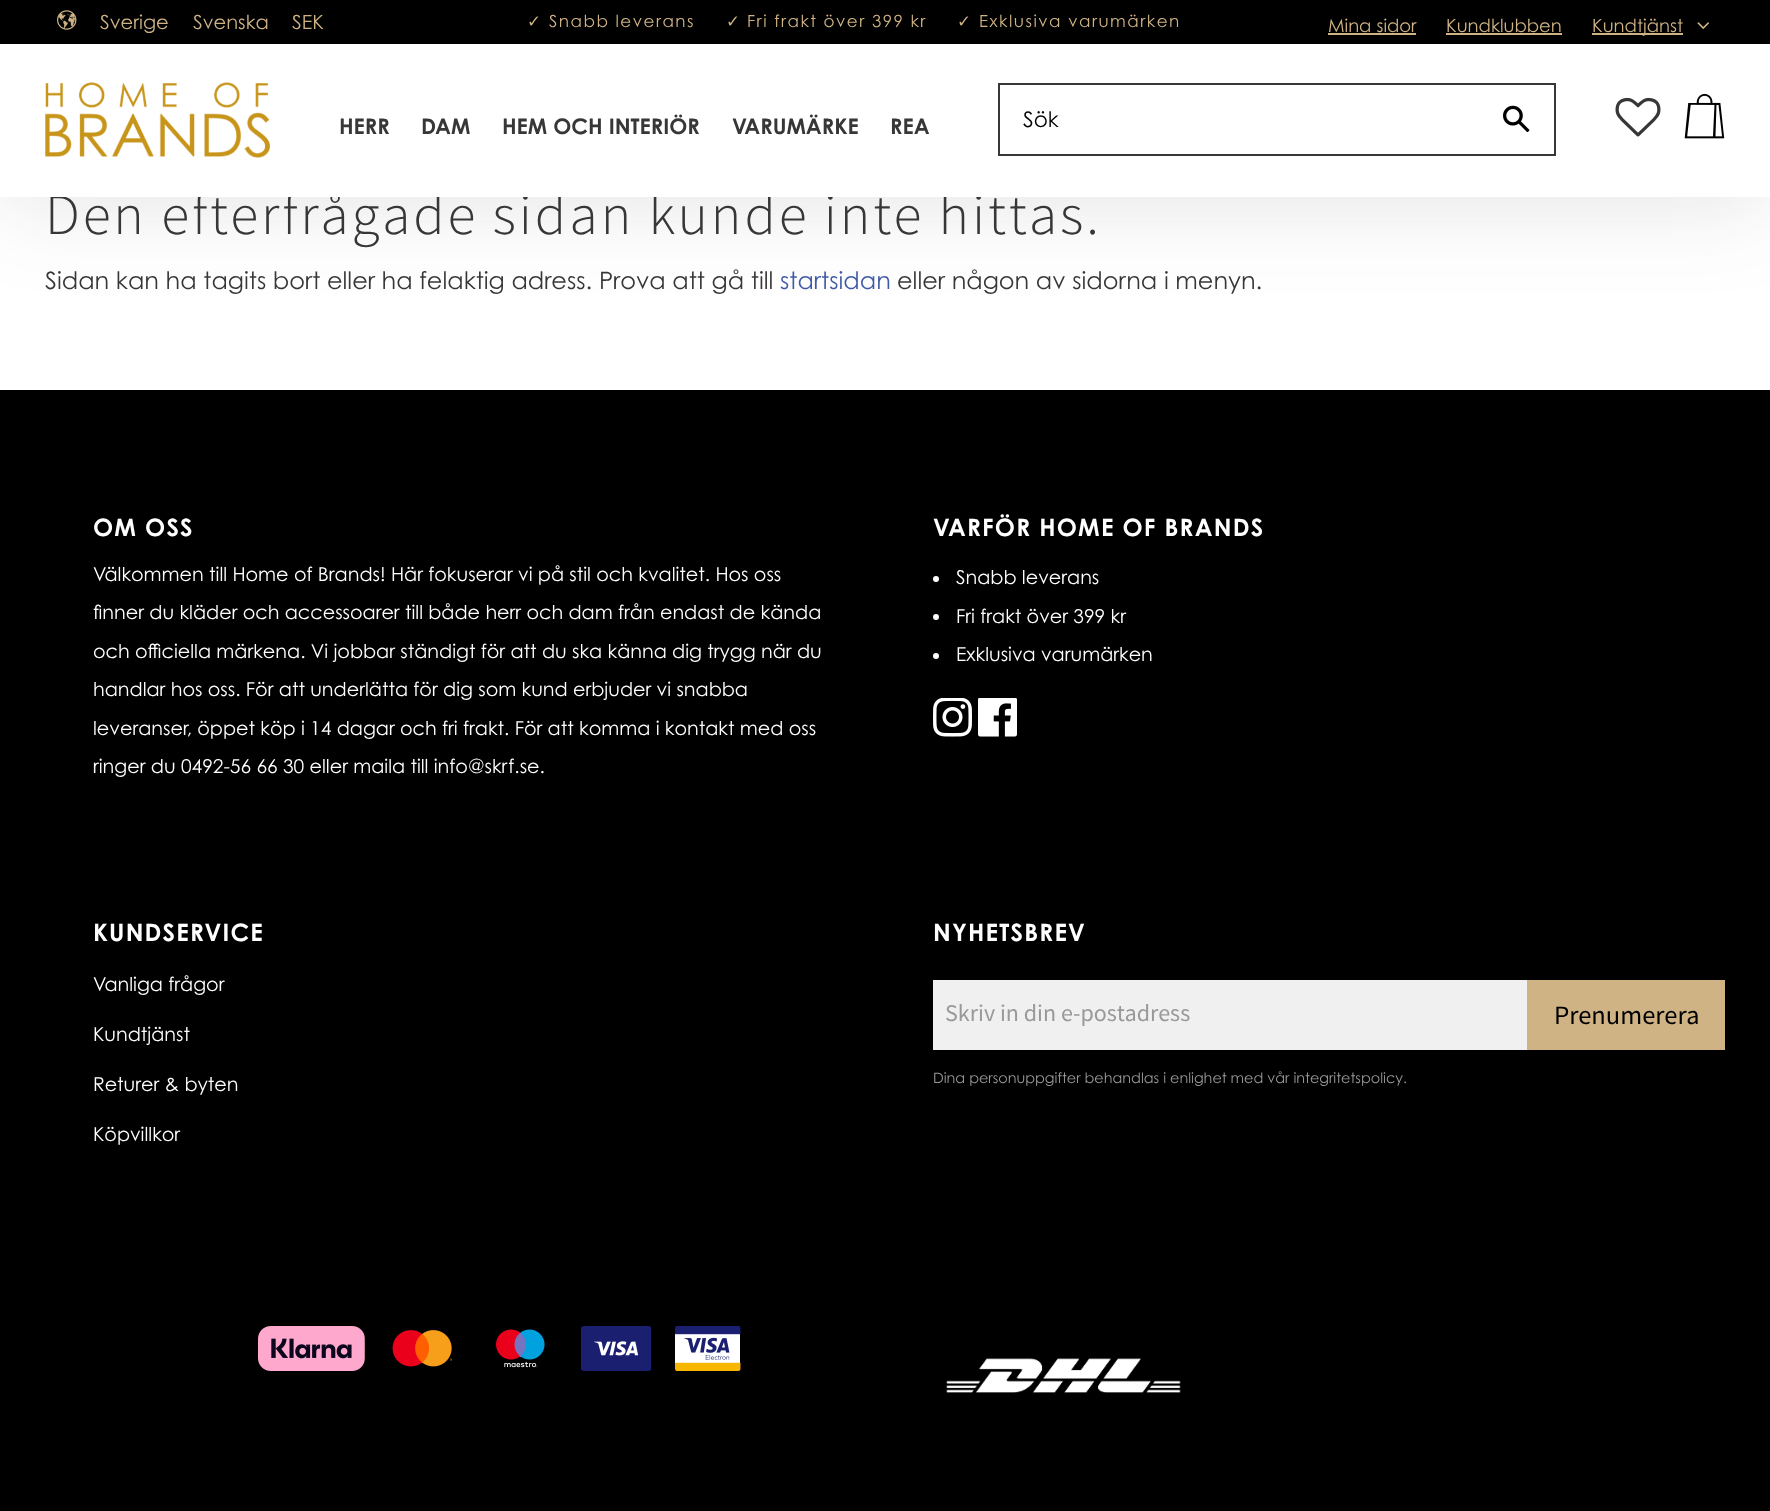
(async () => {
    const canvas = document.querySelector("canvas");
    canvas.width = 1770;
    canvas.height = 1511;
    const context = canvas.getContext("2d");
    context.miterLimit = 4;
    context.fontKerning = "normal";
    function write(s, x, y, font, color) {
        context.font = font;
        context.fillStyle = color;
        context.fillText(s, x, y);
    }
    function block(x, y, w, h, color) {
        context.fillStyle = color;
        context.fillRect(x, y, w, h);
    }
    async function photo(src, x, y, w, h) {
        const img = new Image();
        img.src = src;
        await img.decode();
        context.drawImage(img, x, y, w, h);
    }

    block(0, 0, 1770, 1511, "rgb(255, 255, 255)");
    context.fillStyle = "rgba(55, 55, 55, 0.15)";
    context.filter = "blur(48px)";
    context.beginPath();
    context.rect(0, 0, 1770, 197);
    context.fill();
    context.filter = "none";
    block(0, 0, 1770, 44, "rgb(0, 0, 0)");
    context.letterSpacing = "2.9px";
    write("Den efterfrågade sidan kunde inte hittas.", 45, 234, "300 57.6px Source Sans Pro", "rgb(55, 55, 55)");
    block(0, 44, 1770, 153, "rgb(255, 255, 255)");
    await photo("media/1.png", 57, 10, 20, 20);
    context.letterSpacing = "0px";
    write("Sverige", 100, 29, "19.5px Century Gothic", "rgb(207, 179, 133)");
    write("Svenska", 193, 29, "19.5px Century Gothic", "rgb(207, 179, 133)");
    write("SEK", 292, 29, "19.5px Century Gothic", "rgb(207, 179, 133)");
    context.letterSpacing = "1.5px";
    write("✓", 527, 27, "16.75px DejaVu Sans", "rgb(207, 179, 133)");
    write("Snabb leverans", 549, 27, "16.75px Century Gothic", "rgb(207, 179, 133)");
    write("✓", 726, 27, "16.75px DejaVu Sans", "rgb(207, 179, 133)");
    write("Fri frakt över 399 kr", 747, 27, "16.75px Century Gothic", "rgb(207, 179, 133)");
    write("✓", 957, 27, "16.75px DejaVu Sans", "rgb(207, 179, 133)");
    write("Exklusiva varumärken", 979, 27, "16.75px Century Gothic", "rgb(207, 179, 133)");
    context.letterSpacing = "0px";
    write("Mina sidor", 1328, 32, "18px Century Gothic", "rgb(207, 179, 133)");
    block(1328, 33, 88, 2, "rgb(207, 179, 133)");
    write("Kundklubben", 1446, 32, "18px Century Gothic", "rgb(207, 179, 133)");
    block(1446, 33, 116, 2, "rgb(207, 179, 133)");
    block(1592, 33, 91, 2, "rgb(207, 179, 133)");
    write("Kundtjänst", 1592, 32, "18px Century Gothic", "rgb(207, 179, 133)");
    await photo("media/2.png", 1697, 22, 12, 7);
    await photo("media/3.png", 45, 82, 225, 76);
    write("HERR", 339, 134, "bold 21.5px Century Gothic", "rgb(55, 55, 55)");
    write("DAM", 421, 134, "bold 21.5px Century Gothic", "rgb(55, 55, 55)");
    write("HEM OCH INTERIÖR", 502, 134, "bold 21.5px Century Gothic", "rgb(55, 55, 55)");
    write("VARUMÄRKE", 732, 134, "bold 21.5px Century Gothic", "rgb(55, 55, 55)");
    write("REA", 890, 134, "bold 21.5px Century Gothic", "rgb(55, 55, 55)");
    context.strokeStyle = "rgb(55, 55, 55)";
    context.lineWidth = 2;
    context.strokeRect(999, 84, 556, 71);
    write("Sök", 1023, 127, "21.5px Century Gothic", "rgb(0, 0, 0)");
    await photo("media/4.png", 1503, 105, 27, 28);
    await photo("media/5.png", 1615, 97, 46, 40);
    await photo("media/6.png", 1684, 93, 41, 46);
    write("Sidan kan ha tagits bort eller ha felaktig adress. Prova att gå till", 45, 289, "24px Century Gothic", "rgb(55, 55, 55)");
    write("startsidan", 780, 289, "24px Century Gothic", "rgb(64, 90, 167)");
    write("eller någon av sidorna i menyn.", 897, 289, "24px Century Gothic", "rgb(55, 55, 55)");
    block(0, 390, 1770, 1121, "rgb(0, 0, 0)");
    context.letterSpacing = "1.2px";
    write("OM OSS", 93, 536, "bold 24px Century Gothic", "rgb(255, 255, 255)");
    context.letterSpacing = "0px";
    write("Välkommen till Home of Brands! Här fokuserar vi på stil och kvalitet. Hos oss", 93, 581, "19.2px Century Gothic", "rgb(255, 255, 255)");
    write("finner du kläder och accessoarer till både herr och dam från endast de kända", 93, 619, "19.2px Century Gothic", "rgb(255, 255, 255)");
    write("och officiella märkena. Vi jobbar ständigt för att du ska känna dig trygg när du", 93, 658, "19.2px Century Gothic", "rgb(255, 255, 255)");
    write("handlar hos oss. För att underlätta för dig som kund erbjuder vi snabba", 93, 696, "19.2px Century Gothic", "rgb(255, 255, 255)");
    write("leveranser, öppet köp i 14 dagar och fri frakt. För att komma i kontakt med oss", 93, 735, "19.2px Century Gothic", "rgb(255, 255, 255)");
    write("ringer du 0492-56 66 30 eller maila till info@skrf.se.", 93, 773, "19.2px Century Gothic", "rgb(255, 255, 255)");
    context.letterSpacing = "1.2px";
    write("VARFÖR HOME OF BRANDS", 933, 536, "bold 24px Century Gothic", "rgb(255, 255, 255)");
    context.beginPath();
    context.arc(936, 579, 3, 0, Math.PI * 2);
    context.fill();
    context.letterSpacing = "0px";
    write("Snabb leverans", 956, 584, "19.2px Century Gothic", "rgb(255, 255, 255)");
    context.beginPath();
    context.arc(936, 617, 3, 0, Math.PI * 2);
    context.fill();
    write("Fri frakt över 399 kr", 956, 623, "19.2px Century Gothic", "rgb(255, 255, 255)");
    context.beginPath();
    context.arc(936, 656, 3, 0, Math.PI * 2);
    context.fill();
    write("Exklusiva varumärken", 956, 661, "19.2px Century Gothic", "rgb(255, 255, 255)");
    await photo("media/7.png", 933, 698, 39, 39);
    await photo("media/8.png", 978, 698, 39, 39);
    context.letterSpacing = "1.2px";
    write("KUNDSERVICE", 93, 941, "bold 24px Century Gothic", "rgb(255, 255, 255)");
    context.letterSpacing = "0px";
    write("Vanliga frågor", 93, 991, "19.2px Century Gothic", "rgb(255, 255, 255)");
    write("Kundtjänst", 93, 1041, "19.2px Century Gothic", "rgb(255, 255, 255)");
    write("Returer & byten", 93, 1091, "19.2px Century Gothic", "rgb(255, 255, 255)");
    write("Köpvillkor", 93, 1141, "19.2px Century Gothic", "rgb(255, 255, 255)");
    context.letterSpacing = "1.2px";
    write("NYHETSBREV", 933, 941, "bold 24px Century Gothic", "rgb(255, 255, 255)");
    block(933, 980, 594, 70, "rgb(240, 240, 240)");
    context.letterSpacing = "0px";
    write("Skriv in din e-postadress", 945, 1021, "24px Source Sans Pro", "rgb(153, 153, 153)");
    block(1527, 980, 198, 70, "rgb(207, 179, 133)");
    write("Prenumerera", 1554, 1024, "26.5px Source Sans Pro", "rgb(0, 0, 0)");
    write("Dina personuppgifter behandlas i enlighet med vår integritetspolicy.", 933, 1083, "14.4px Century Gothic", "rgb(153, 153, 153)");
    await photo("media/9.png", 258, 1326, 107, 45);
    await photo("media/10.png", 392, 1330, 60, 37);
    await photo("media/11.png", 496, 1329, 49, 39);
    await photo("media/12.png", 581, 1326, 70, 45);
    await photo("media/13.png", 675, 1326, 66, 45);
    await photo("media/14.png", 946, 1358, 235, 35);
})();
